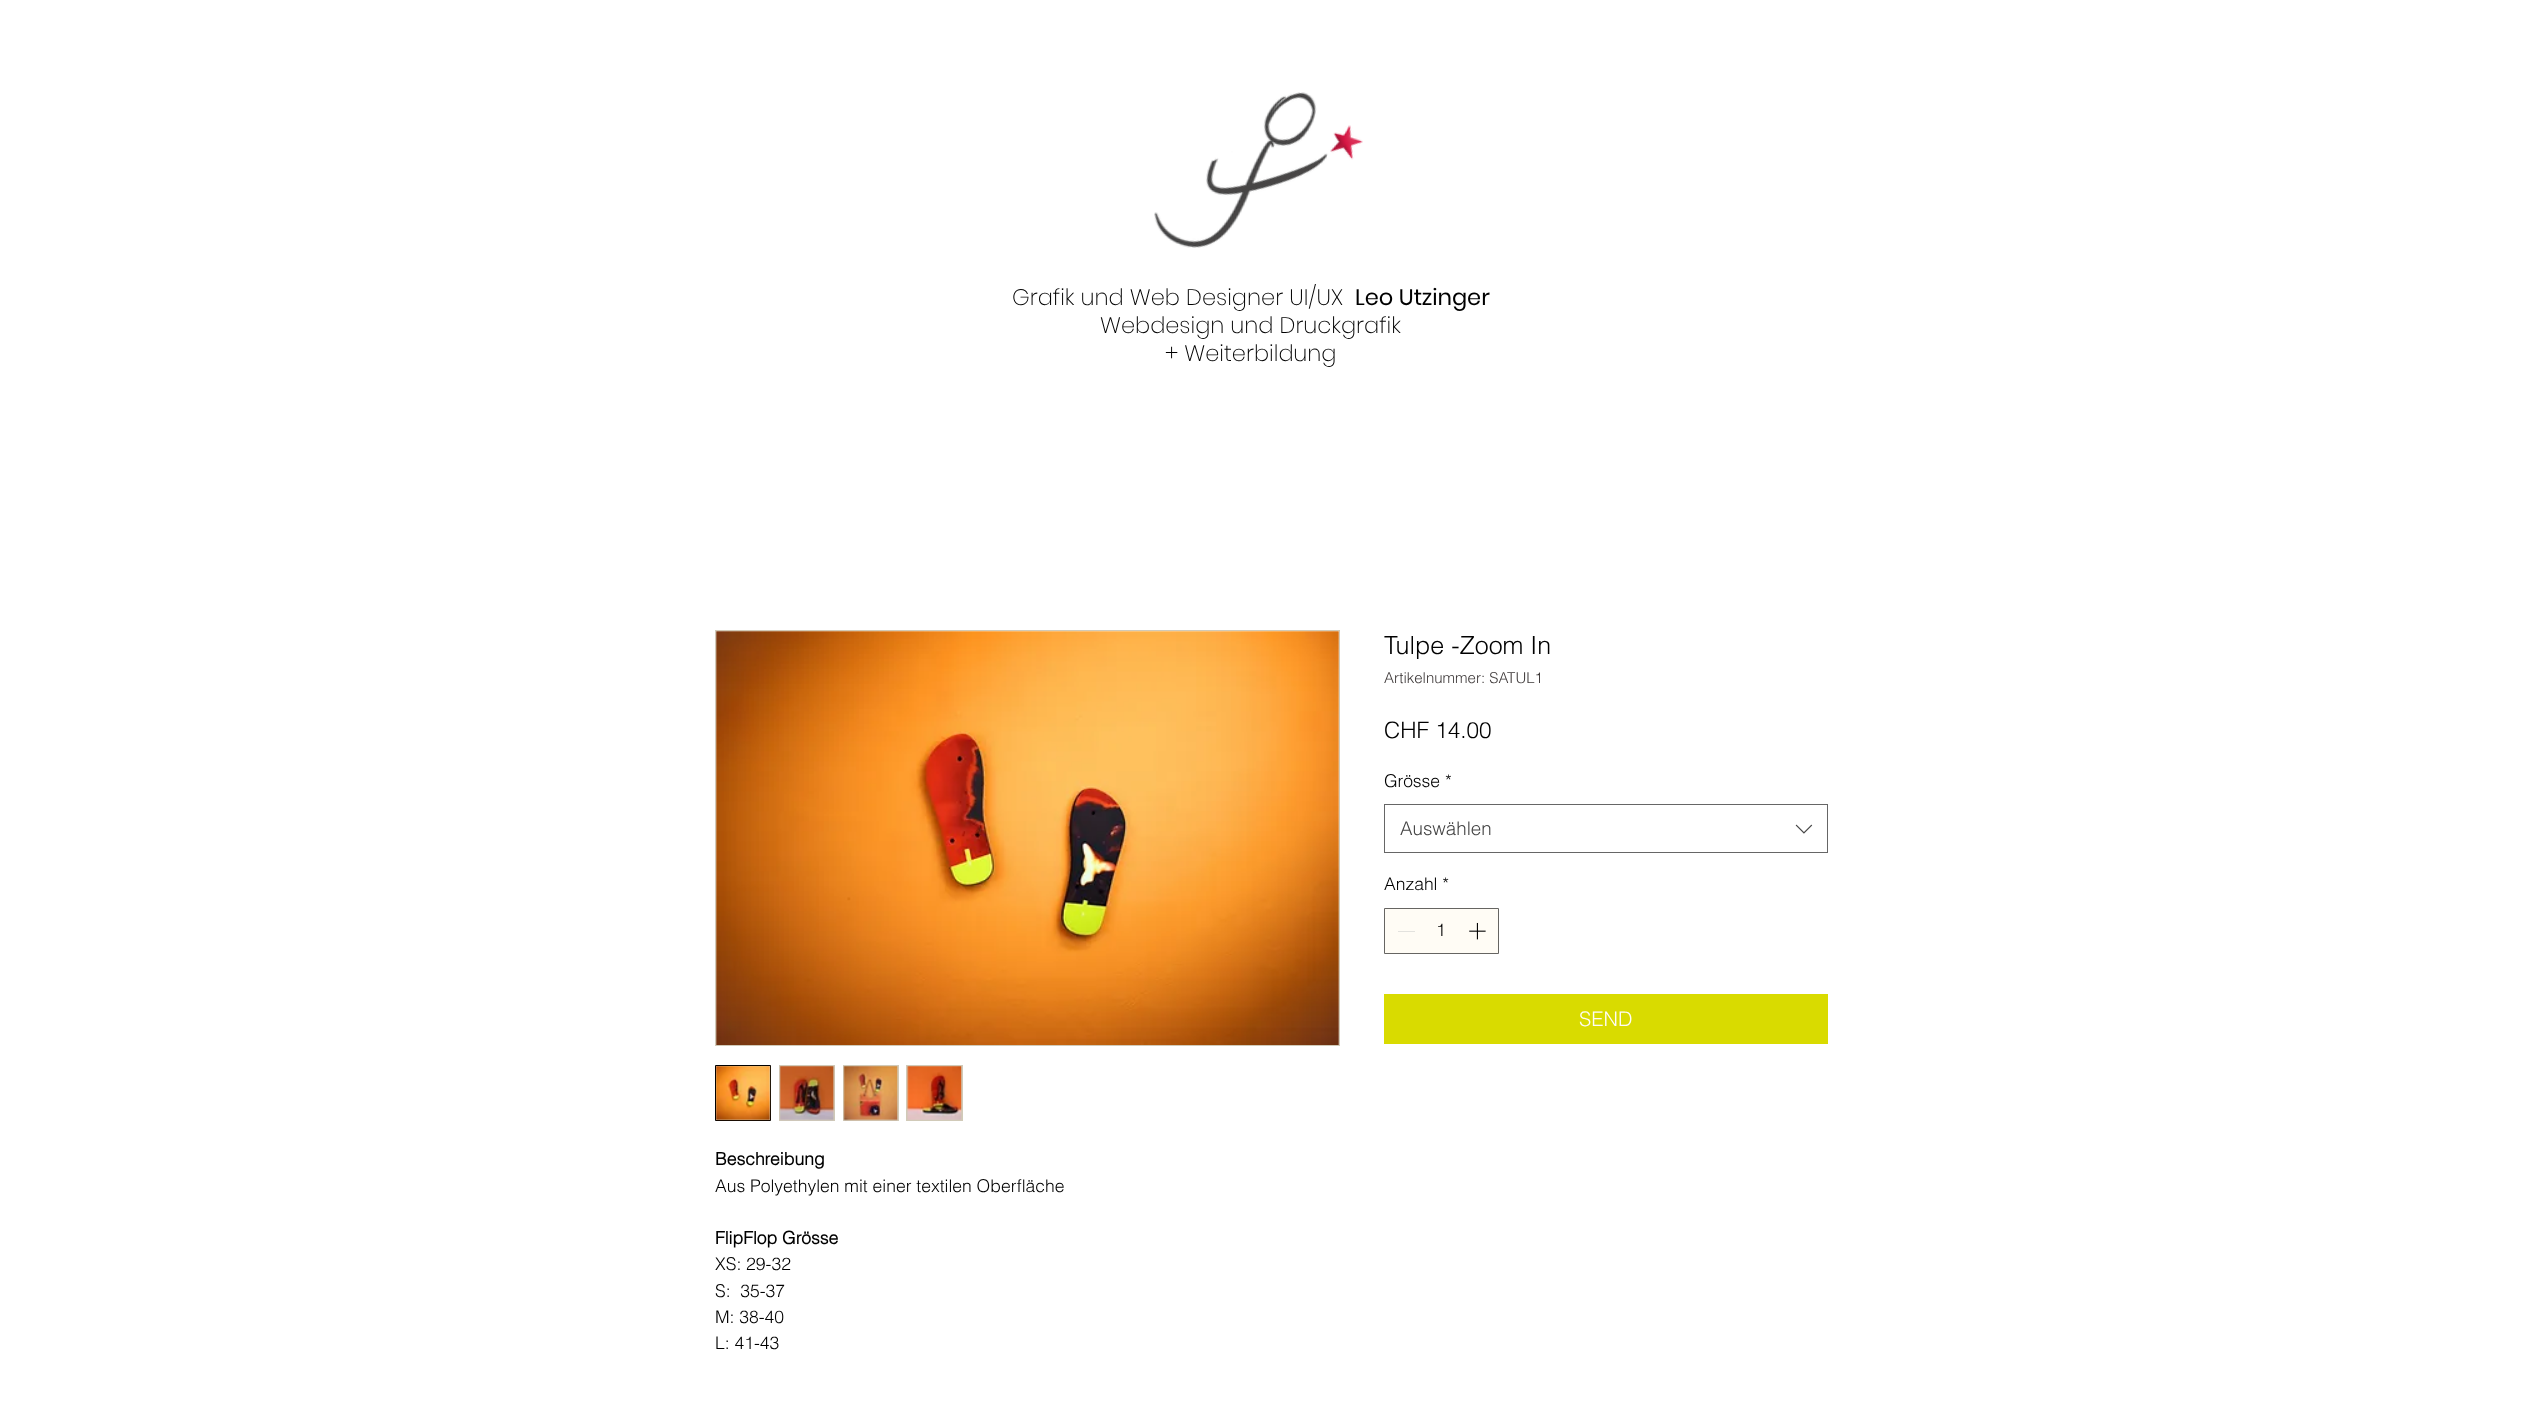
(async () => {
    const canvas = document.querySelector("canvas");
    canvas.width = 2545;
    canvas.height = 1404;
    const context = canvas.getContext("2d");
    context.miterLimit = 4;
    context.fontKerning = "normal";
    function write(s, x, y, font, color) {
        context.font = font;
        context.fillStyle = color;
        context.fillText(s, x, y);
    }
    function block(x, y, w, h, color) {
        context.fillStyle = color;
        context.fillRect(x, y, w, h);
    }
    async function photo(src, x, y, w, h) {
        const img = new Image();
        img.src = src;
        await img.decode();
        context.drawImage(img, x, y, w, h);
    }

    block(0, 0, 2545, 1404, "rgb(255, 255, 255)");
    await photo("media/1.png", 1154, 92, 209, 156);
    write("Grafik und Web Designer UI/UX", 1012, 305, "200 22.5px Poppins", "rgb(0, 0, 0)");
    write("Leo Utzinger", 1355, 305, "22.5px Poppins", "rgb(0, 0, 0)");
    write("Webdesign und Druckgrafik", 1100, 333, "200 22.5px Poppins", "rgb(0, 0, 0)");
    write("+ Weiterbildung", 1165, 361, "200 22.5px Poppins", "rgb(0, 0, 0)");
    write("Tulpe -Zoom In", 1384, 654, "300 25px helvetica", "rgb(0, 0, 0)");
    write("Artikelnummer: SATUL1", 1384, 683, "300 15px helvetica", "rgb(61, 56, 56)");
    write("CHF 14.00", 1384, 738, "300 22.5px helvetica", "rgb(0, 0, 0)");
    write("Grösse *", 1384, 787, "300 17.5px helvetica", "rgb(0, 0, 0)");
    context.strokeStyle = "rgb(102, 102, 102)";
    context.strokeRect(1384.5, 804.5, 443, 48);
    write("Auswählen", 1400, 835, "300 18.75px helvetica", "rgb(68, 68, 68)");
    await photo("media/2.png", 1795, 824, 18, 10);
    write("Anzahl *", 1384, 890, "300 17.5px helvetica", "rgb(0, 0, 0)");
    context.fillStyle = "rgb(255, 252, 245)";
    context.beginPath();
    context.rect(1384.5, 908.5, 114, 45);
    context.fill();
    context.strokeStyle = "rgb(102, 101, 98)";
    context.stroke();
    block(1398, 931, 17, 1, "rgb(227, 226, 222)");
    write("1", 1436, 936, "300 17.5px helvetica", "rgb(0, 0, 0)");
    await photo("media/3.png", 1469, 922, 17, 18);
    block(1384, 994, 444, 50, "rgb(217, 219, 0)");
    write("SEND", 1579, 1026, "300 20px helvetica", "rgb(255, 252, 245)");
    context.strokeStyle = "rgb(209, 202, 184)";
    context.strokeRect(715.5, 630.5, 624, 415);
    await photo("media/4.png", 716, 631, 623, 414);
    context.fillStyle = "rgb(209, 202, 184)";
    context.beginPath();
    context.rect(715.5, 1065.5, 55, 55);
    context.fill();
    context.strokeStyle = "rgb(0, 0, 0)";
    context.stroke();
    await photo("media/5.png", 716, 1066, 55, 55);
    block(779, 1065, 56, 56, "rgb(209, 202, 184)");
    await photo("media/6.png", 779, 1066, 56, 55);
    block(843, 1065, 56, 56, "rgb(209, 202, 184)");
    await photo("media/7.png", 843, 1066, 55, 55);
    block(906, 1065, 57, 56, "rgb(209, 202, 184)");
    await photo("media/8.png", 907, 1066, 55, 54);
    write("Beschreibung", 715, 1165, "bold 17.5px helvetica", "rgb(0, 0, 0)");
    write("Aus Polyethylen mit einer textilen Oberfläche", 715, 1192, "300 17.5px helvetica", "rgb(0, 0, 0)");
    write("FlipFlop Grösse", 715, 1244, "bold 17.5px helvetica", "rgb(0, 0, 0)");
    write("XS: 29-32", 715, 1270, "300 17.5px helvetica", "rgb(0, 0, 0)");
    write("S:  35-37", 715, 1297, "300 17.5px helvetica", "rgb(0, 0, 0)");
    write("M: 38-40", 715, 1323, "300 17.5px helvetica", "rgb(0, 0, 0)");
    write("L: 41-43", 715, 1349, "300 17.5px helvetica", "rgb(0, 0, 0)");
})();
